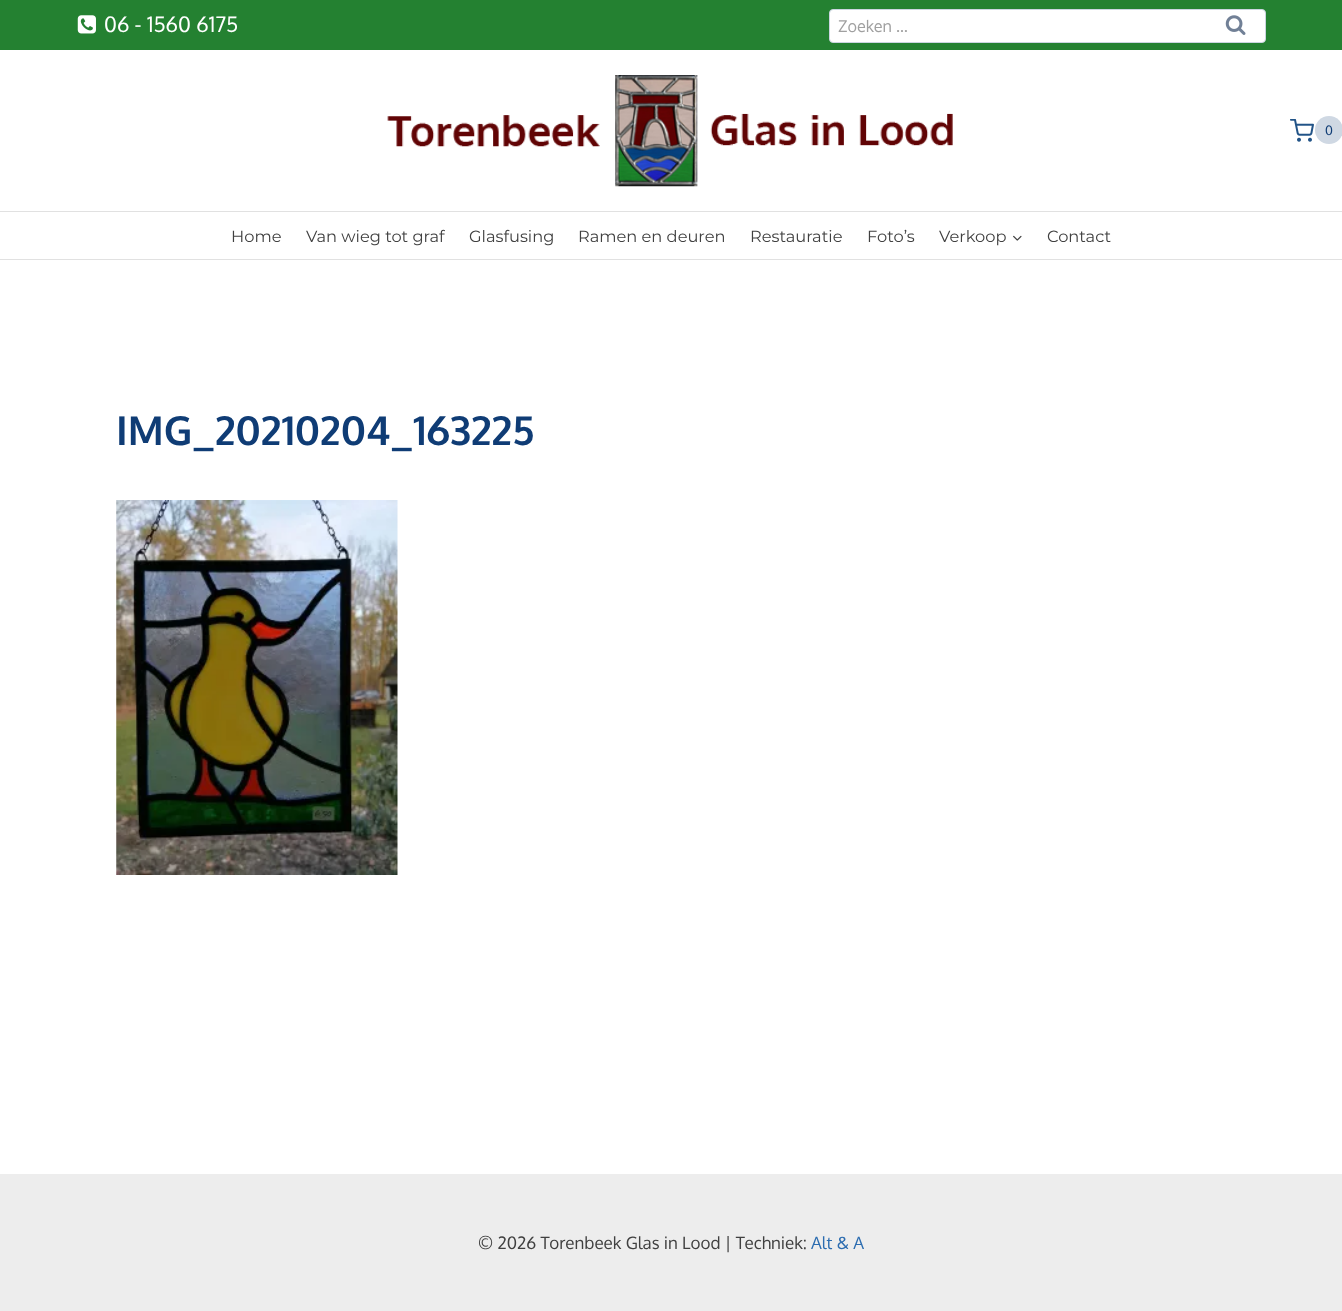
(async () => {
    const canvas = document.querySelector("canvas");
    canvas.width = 1342;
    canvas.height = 1311;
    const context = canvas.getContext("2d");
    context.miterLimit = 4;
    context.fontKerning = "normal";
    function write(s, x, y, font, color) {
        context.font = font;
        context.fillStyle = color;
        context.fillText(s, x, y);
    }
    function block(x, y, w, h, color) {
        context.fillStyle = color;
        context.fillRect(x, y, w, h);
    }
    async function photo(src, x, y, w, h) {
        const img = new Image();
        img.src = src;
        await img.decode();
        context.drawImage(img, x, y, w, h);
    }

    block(0, 0, 1342, 1311, "rgb(255, 255, 255)");
    block(0, 0, 1342, 50, "rgb(36, 129, 49)");
    await photo("media/1.png", 77, 15, 19, 19);
    write("06 - 1560 6175", 104, 32, "21.25px Oxygen", "rgb(255, 255, 255)");
    context.beginPath();
    context.roundRect(829.5, 9.5, 436, 33, 3.5);
    context.fill();
    context.strokeStyle = "rgb(203, 213, 224)";
    context.stroke();
    write("Zoeken …", 838, 32, "16.25px Oxygen", "rgb(160, 160, 160)");
    await photo("media/2.png", 1225, 15, 21, 20);
    await photo("media/3.png", 387, 75, 566, 112);
    await photo("media/4.png", 1290, 119, 24, 23);
    context.fillStyle = "rgb(207, 216, 227)";
    context.beginPath();
    context.arc(1329, 130, 14, 0, Math.PI * 2);
    context.fill();
    write("0", 1325, 135, "13px Oxygen", "rgb(15, 60, 117)");
    block(0, 211, 1342, 1, "rgb(225, 225, 225)");
    block(0, 259, 1342, 1, "rgb(225, 225, 225)");
    write("Home", 231, 242, "100 16.25px Montserrat", "rgb(64, 64, 64)");
    write("Van wieg tot graf", 306, 242, "100 16.25px Montserrat", "rgb(64, 64, 64)");
    write("Glasfusing", 469, 242, "100 16.25px Montserrat", "rgb(64, 64, 64)");
    write("Ramen en deuren", 578, 242, "100 16.25px Montserrat", "rgb(64, 64, 64)");
    write("Restauratie", 750, 242, "100 16.25px Montserrat", "rgb(64, 64, 64)");
    write("Foto’s", 867, 242, "100 16.25px Montserrat", "rgb(64, 64, 64)");
    write("Verkoop", 939, 242, "100 16.25px Montserrat", "rgb(64, 64, 64)");
    await photo("media/5.png", 1013, 235, 9, 6);
    write("Contact", 1047, 242, "100 16.25px Montserrat", "rgb(64, 64, 64)");
    write("IMG_20210204_163225", 116, 445, "bold 40px Oxygen", "rgb(15, 60, 117)");
    await photo("media/6.png", 116, 500, 282, 375);
    block(0, 1174, 1342, 137, "rgb(237, 237, 237)");
    write("© 2026 Torenbeek Glas in Lood | Techniek:", 478, 1249, "17px Oxygen", "rgb(64, 64, 64)");
    write("Alt & A", 811, 1249, "17px Oxygen", "rgb(43, 108, 176)");
})();
